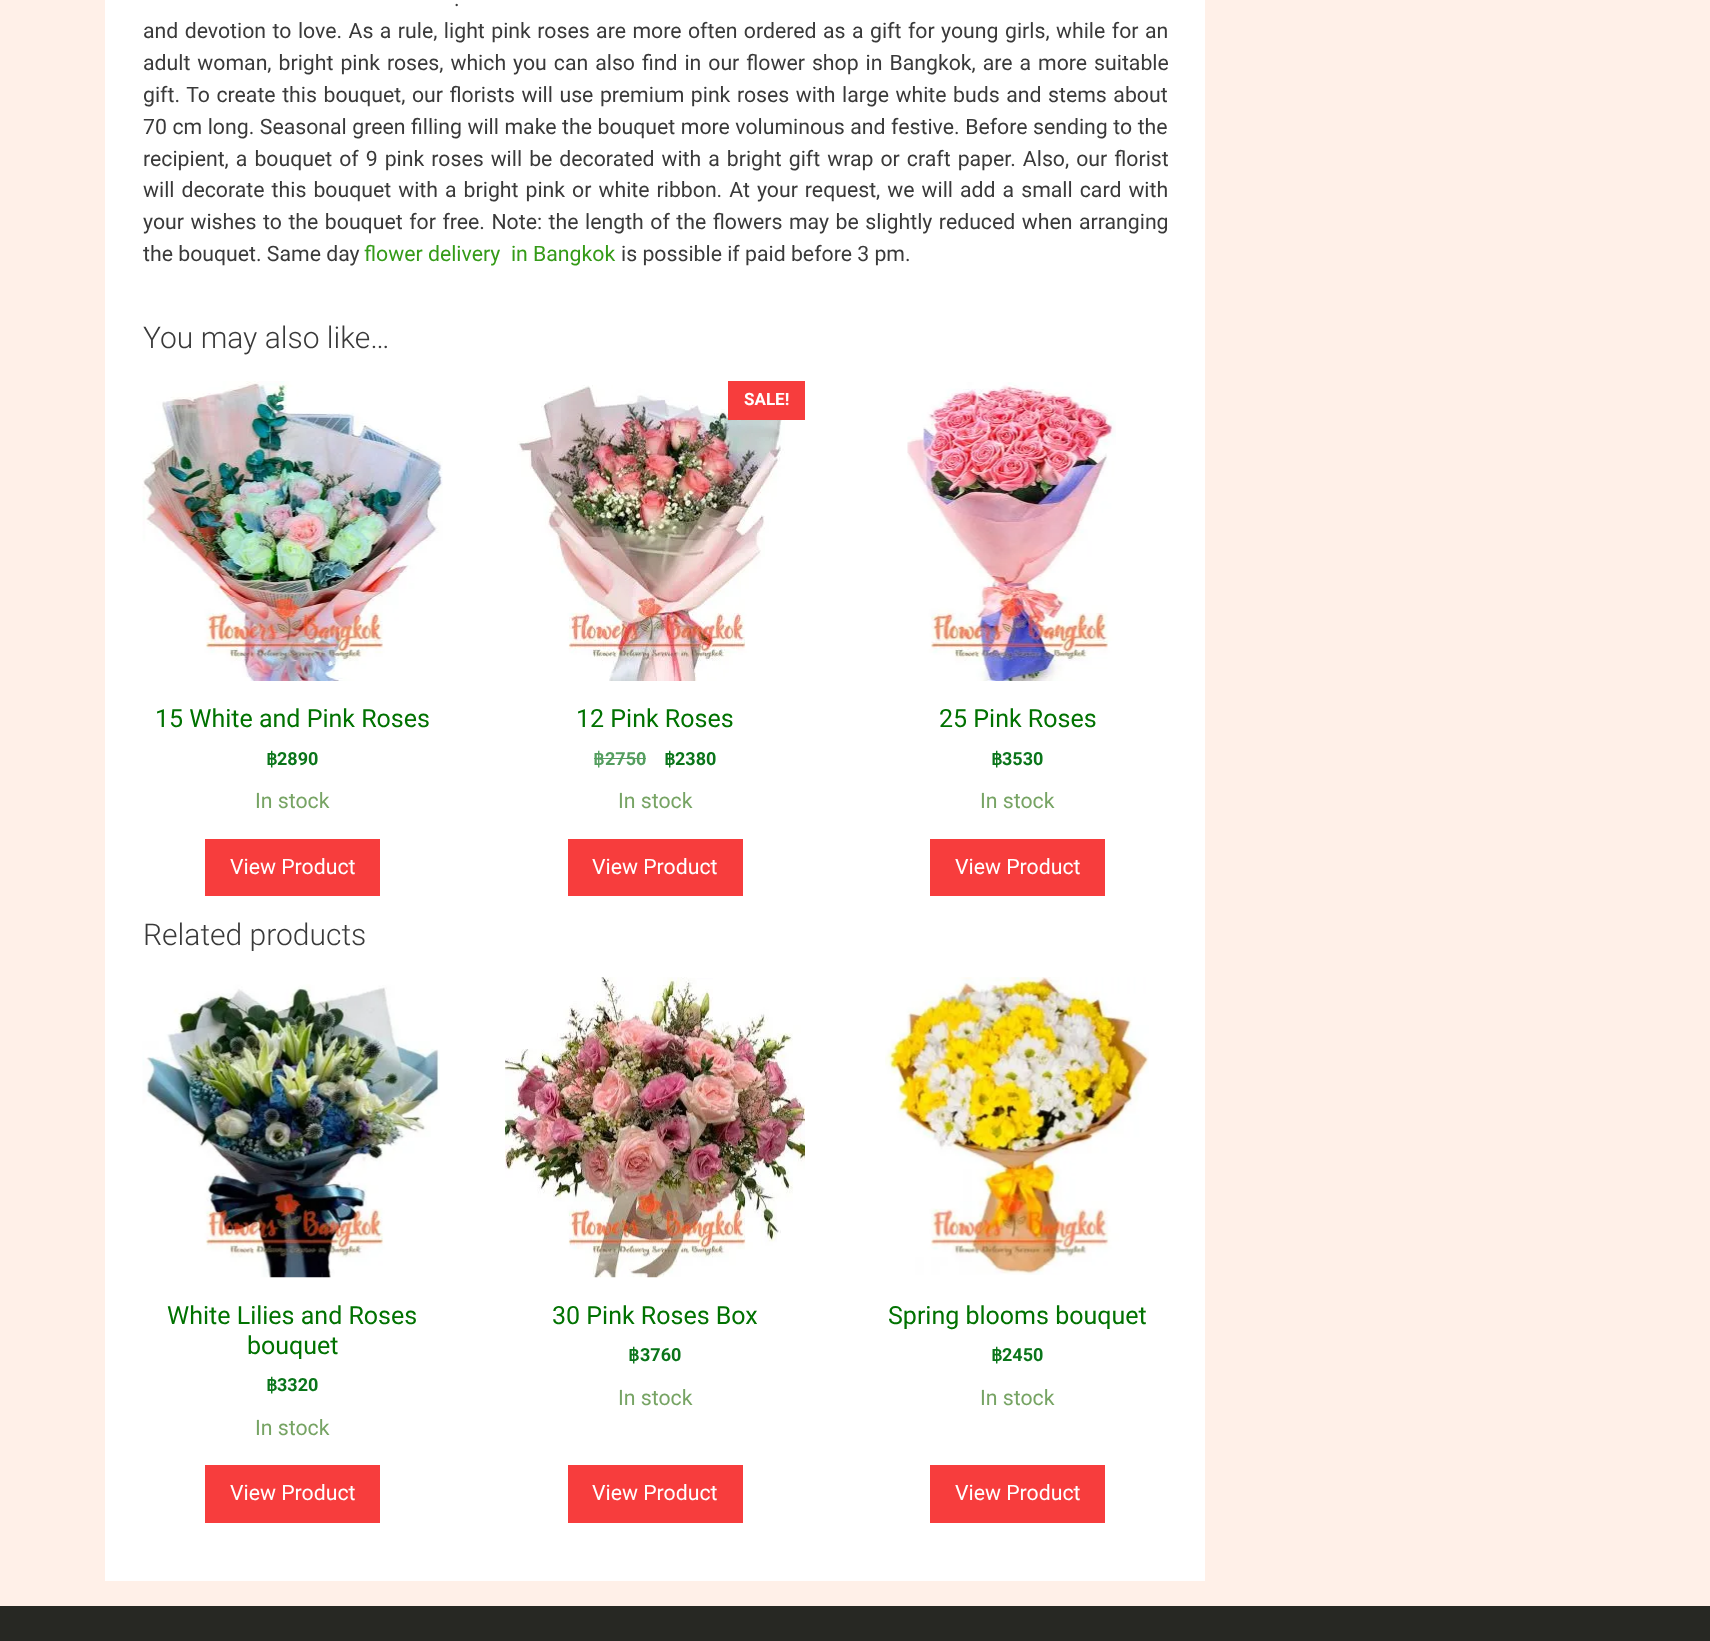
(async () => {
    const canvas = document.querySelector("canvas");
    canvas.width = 1710;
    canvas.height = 1641;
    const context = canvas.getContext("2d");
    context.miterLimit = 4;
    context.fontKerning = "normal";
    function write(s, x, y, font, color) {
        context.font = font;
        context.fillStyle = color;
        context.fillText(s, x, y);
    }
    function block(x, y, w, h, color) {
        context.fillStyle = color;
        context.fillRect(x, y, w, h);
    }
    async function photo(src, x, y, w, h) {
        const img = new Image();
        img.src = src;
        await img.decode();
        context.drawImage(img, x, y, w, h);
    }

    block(0, 0, 1710, 1641, "rgb(255, 240, 232)");
    block(105, 0, 1100, 1581, "rgb(255, 255, 255)");
    context.wordSpacing = "1px";
    write(".", 454, 6, "21.25px Roboto", "rgb(58, 58, 58)");
    context.wordSpacing = "1.2px";
    write("and devotion to love. As a rule, light pink roses are more often ordered as a gift for young girls, while for an", 143, 38, "21.25px Roboto", "rgb(58, 58, 58)");
    context.wordSpacing = "1.7px";
    write("adult woman, bright pink roses, which you can also find in our flower shop in Bangkok, are a more suitable", 143, 70, "21.25px Roboto", "rgb(58, 58, 58)");
    context.wordSpacing = "1.25px";
    write("gift. To create this bouquet, our florists will use premium pink roses with large white buds and stems about", 143, 102, "21.25px Roboto", "rgb(58, 58, 58)");
    context.wordSpacing = "0.25px";
    write("70 cm long. Seasonal green filling will make the bouquet more voluminous and festive. Before sending to the", 143, 134, "21.25px Roboto", "rgb(58, 58, 58)");
    context.wordSpacing = "1.75px";
    write("recipient, a bouquet of 9 pink roses will be decorated with a bright gift wrap or craft paper. Also, our florist", 143, 166, "21.25px Roboto", "rgb(58, 58, 58)");
    write("will decorate this bouquet with a bright pink or white ribbon. At your request, we will add a small card with", 143, 197, "21.25px Roboto", "rgb(58, 58, 58)");
    context.wordSpacing = "1.25px";
    write("your wishes to the bouquet for free. Note: the length of the flowers may be slightly reduced when arranging", 143, 229, "21.25px Roboto", "rgb(58, 58, 58)");
    context.wordSpacing = "0px";
    write("the bouquet. Same day", 143, 261, "21.25px Roboto", "rgb(58, 58, 58)");
    write("flower delivery  in Bangkok", 364, 261, "21.25px Roboto", "rgb(53, 155, 24)");
    write("is possible if paid before 3 pm.", 621, 261, "21.25px Roboto", "rgb(58, 58, 58)");
    write("You may also like…", 143, 348, "300 30px Roboto", "rgb(58, 58, 58)");
    await photo("media/1.png", 142, 381, 301, 300);
    write("15 White and Pink Roses", 155, 727, "25px Roboto", "rgb(1, 114, 1)");
    write("฿", 266, 765, "bold 18px DejaVu Sans", "rgb(10, 117, 26)");
    write("2890", 277, 765, "bold 18px Roboto", "rgb(10, 117, 26)");
    write("In stock", 255, 808, "21.25px Roboto", "rgb(119, 164, 100)");
    block(205, 839, 175, 57, "rgb(247, 61, 61)");
    write("View Product", 230, 874, "21.25px Roboto", "rgb(255, 255, 255)");
    await photo("media/2.png", 517, 385, 268, 296);
    block(728, 381, 77, 39, "rgb(247, 61, 61)");
    write("SALE!", 744, 405, "bold 17px Roboto", "rgb(255, 255, 255)");
    write("12 Pink Roses", 576, 727, "25px Roboto", "rgb(1, 114, 1)");
    write("฿", 593, 765, "bold 18px DejaVu Sans", "rgb(84, 158, 95)");
    write("2750", 605, 765, "bold 18px Roboto", "rgb(84, 158, 95)");
    block(594, 758, 11, 1, "rgb(84, 158, 95)");
    block(605, 758, 41, 1, "rgb(84, 158, 95)");
    write("฿", 664, 765, "bold 18px DejaVu Sans", "rgb(10, 117, 26)");
    write("2380", 675, 765, "bold 18px Roboto", "rgb(10, 117, 26)");
    write("In stock", 618, 808, "21.25px Roboto", "rgb(119, 164, 100)");
    block(568, 839, 175, 57, "rgb(247, 61, 61)");
    write("View Product", 592, 874, "21.25px Roboto", "rgb(255, 255, 255)");
    await photo("media/3.png", 907, 382, 209, 299);
    write("25 Pink Roses", 939, 727, "25px Roboto", "rgb(1, 114, 1)");
    write("฿", 991, 765, "bold 18px DejaVu Sans", "rgb(10, 117, 26)");
    write("3530", 1002, 765, "bold 18px Roboto", "rgb(10, 117, 26)");
    write("In stock", 980, 808, "21.25px Roboto", "rgb(119, 164, 100)");
    block(930, 839, 175, 57, "rgb(247, 61, 61)");
    write("View Product", 955, 874, "21.25px Roboto", "rgb(255, 255, 255)");
    write("Related products", 143, 945, "300 30px Roboto", "rgb(58, 58, 58)");
    await photo("media/4.png", 142, 984, 298, 294);
    write("White Lilies and Roses", 167, 1324, "25px Roboto", "rgb(1, 114, 1)");
    write("bouquet", 247, 1354, "25px Roboto", "rgb(1, 114, 1)");
    write("฿", 266, 1391, "bold 18px DejaVu Sans", "rgb(10, 117, 26)");
    write("3320", 277, 1391, "bold 18px Roboto", "rgb(10, 117, 26)");
    write("In stock", 255, 1435, "21.25px Roboto", "rgb(119, 164, 100)");
    block(205, 1465, 175, 58, "rgb(247, 61, 61)");
    write("View Product", 230, 1500, "21.25px Roboto", "rgb(255, 255, 255)");
    await photo("media/5.png", 505, 977, 300, 301);
    write("30 Pink Roses Box", 552, 1324, "25px Roboto", "rgb(1, 114, 1)");
    write("฿", 628, 1361, "bold 18px DejaVu Sans", "rgb(10, 117, 26)");
    write("3760", 640, 1361, "bold 18px Roboto", "rgb(10, 117, 26)");
    write("In stock", 618, 1405, "21.25px Roboto", "rgb(119, 164, 100)");
    block(568, 1465, 175, 58, "rgb(247, 61, 61)");
    write("View Product", 592, 1500, "21.25px Roboto", "rgb(255, 255, 255)");
    await photo("media/6.png", 885, 977, 264, 298);
    write("Spring blooms bouquet", 888, 1324, "25px Roboto", "rgb(1, 114, 1)");
    write("฿", 991, 1361, "bold 18px DejaVu Sans", "rgb(10, 117, 26)");
    write("2450", 1002, 1361, "bold 18px Roboto", "rgb(10, 117, 26)");
    write("In stock", 980, 1405, "21.25px Roboto", "rgb(119, 164, 100)");
    block(930, 1465, 175, 58, "rgb(247, 61, 61)");
    write("View Product", 955, 1500, "21.25px Roboto", "rgb(255, 255, 255)");
    block(0, 1606, 1710, 35, "rgb(39, 40, 35)");
})();
